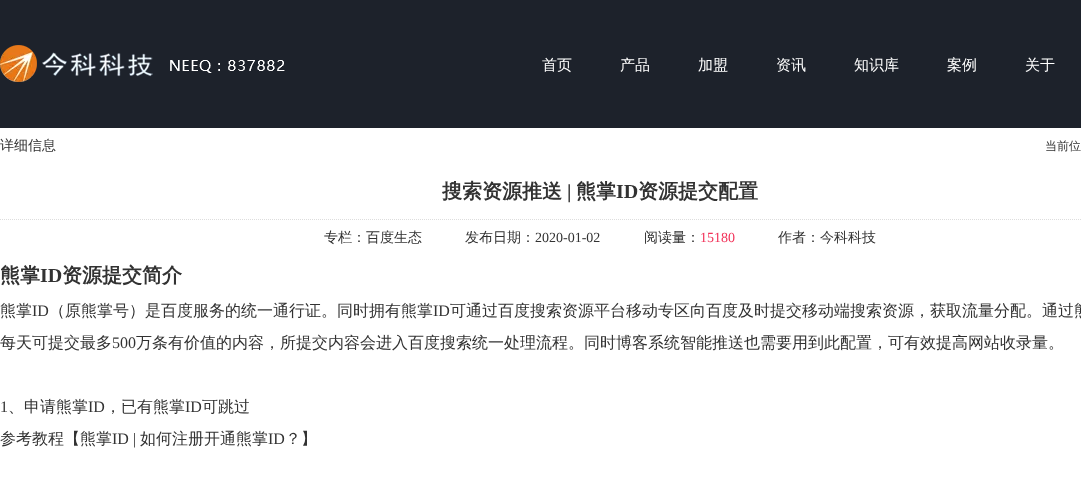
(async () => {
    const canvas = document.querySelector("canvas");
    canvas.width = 1081;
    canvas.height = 478;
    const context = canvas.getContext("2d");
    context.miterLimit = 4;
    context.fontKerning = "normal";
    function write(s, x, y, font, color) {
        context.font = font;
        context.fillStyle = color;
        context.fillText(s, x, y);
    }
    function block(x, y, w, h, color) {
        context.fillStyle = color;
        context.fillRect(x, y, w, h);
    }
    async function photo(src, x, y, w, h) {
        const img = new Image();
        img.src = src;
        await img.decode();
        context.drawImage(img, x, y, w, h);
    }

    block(0, 0, 1081, 478, "rgb(255, 255, 255)");
    block(0, 0, 1081, 128, "rgb(29, 34, 43)");
    await photo("media/1.png", 0, 45, 285, 37);
    write("首页", 542, 70, "500 15px WenQuanYi Zen Hei", "rgb(255, 255, 255)");
    write("产品", 620, 70, "500 15px WenQuanYi Zen Hei", "rgb(255, 255, 255)");
    write("加盟", 698, 70, "500 15px WenQuanYi Zen Hei", "rgb(255, 255, 255)");
    write("资讯", 776, 70, "500 15px WenQuanYi Zen Hei", "rgb(255, 255, 255)");
    write("知识库", 854, 70, "500 15px WenQuanYi Zen Hei", "rgb(255, 255, 255)");
    write("案例", 947, 70, "500 15px WenQuanYi Zen Hei", "rgb(255, 255, 255)");
    write("关于", 1025, 70, "500 15px WenQuanYi Zen Hei", "rgb(255, 255, 255)");
    write("详细信息", 0, 150, "500 14px WenQuanYi Zen Hei", "rgb(50, 50, 50)");
    write("当前位", 1045, 150, "500 12px WenQuanYi Zen Hei", "rgb(50, 50, 50)");
    context.beginPath();
    context.moveTo(0, 219.5);
    context.lineTo(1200, 219.5);
    context.strokeStyle = "rgb(221, 221, 221)";
    context.setLineDash([1, 1]);
    context.stroke();
    write("搜索资源推送", 442, 198, "bold 20px WenQuanYi Zen Hei", "rgb(50, 50, 50)");
    write("|", 567, 198, "bold 20px Liberation Serif", "rgb(50, 50, 50)");
    write("熊掌", 576, 198, "bold 20px WenQuanYi Zen Hei", "rgb(50, 50, 50)");
    write("ID", 616, 198, "bold 20px Liberation Serif", "rgb(50, 50, 50)");
    write("资源提交配置", 638, 198, "bold 20px WenQuanYi Zen Hei", "rgb(50, 50, 50)");
    write("专栏：百度生态", 324, 242, "500 14px WenQuanYi Zen Hei", "rgb(50, 50, 50)");
    write("发布日期：", 465, 242, "500 14px WenQuanYi Zen Hei", "rgb(50, 50, 50)");
    write("2020-01-02", 535, 242, "14px Liberation Serif", "rgb(50, 50, 50)");
    write("阅读量：", 644, 242, "500 14px WenQuanYi Zen Hei", "rgb(50, 50, 50)");
    write("15180", 700, 242, "14px Liberation Serif", "rgb(242, 50, 89)");
    write("作者：今科科技", 778, 242, "500 14px WenQuanYi Zen Hei", "rgb(50, 50, 50)");
    write("熊掌", 0, 282, "bold 20px WenQuanYi Zen Hei", "rgb(50, 50, 50)");
    write("ID", 40, 282, "bold 20px Liberation Serif", "rgb(50, 50, 50)");
    write("资源提交简介", 62, 282, "bold 20px WenQuanYi Zen Hei", "rgb(50, 50, 50)");
    write("熊掌", 0, 316, "500 16px WenQuanYi Zen Hei", "rgb(50, 50, 50)");
    write("ID", 32, 316, "16px Liberation Serif", "rgb(50, 50, 50)");
    write("（原熊掌号）是百度服务的统一通行证。同时拥有熊掌", 49, 316, "500 16px WenQuanYi Zen Hei", "rgb(50, 50, 50)");
    write("ID", 433, 316, "16px Liberation Serif", "rgb(50, 50, 50)");
    write("可通过百度搜索资源平台移动专区向百度及时提交移动端搜索资源，获取流量分配。通过熊", 450, 316, "500 16px WenQuanYi Zen Hei", "rgb(50, 50, 50)");
    write("每天可提交最多", 0, 348, "500 16px WenQuanYi Zen Hei", "rgb(50, 50, 50)");
    write("500", 112, 348, "16px Liberation Serif", "rgb(50, 50, 50)");
    write("万条有价值的内容，所提交内容会进入百度搜索统一处理流程。同时博客系统智能推送也需要用到此配置，可有效提高网站收录量。", 136, 348, "500 16px WenQuanYi Zen Hei", "rgb(50, 50, 50)");
    write("1", 0, 412, "16px Liberation Serif", "rgb(50, 50, 50)");
    write("、申请熊掌", 8, 412, "500 16px WenQuanYi Zen Hei", "rgb(50, 50, 50)");
    write("ID", 88, 412, "16px Liberation Serif", "rgb(50, 50, 50)");
    write("，已有熊掌", 105, 412, "500 16px WenQuanYi Zen Hei", "rgb(50, 50, 50)");
    write("ID", 185, 412, "16px Liberation Serif", "rgb(50, 50, 50)");
    write("可跳过", 202, 412, "500 16px WenQuanYi Zen Hei", "rgb(50, 50, 50)");
    write("参考教程【熊掌", 0, 444, "500 16px WenQuanYi Zen Hei", "rgb(50, 50, 50)");
    write("ID |", 112, 444, "16px Liberation Serif", "rgb(50, 50, 50)");
    write("如何注册开通熊掌", 140, 444, "500 16px WenQuanYi Zen Hei", "rgb(50, 50, 50)");
    write("ID", 268, 444, "16px Liberation Serif", "rgb(50, 50, 50)");
    write("？】", 285, 444, "500 16px WenQuanYi Zen Hei", "rgb(50, 50, 50)");
})();
